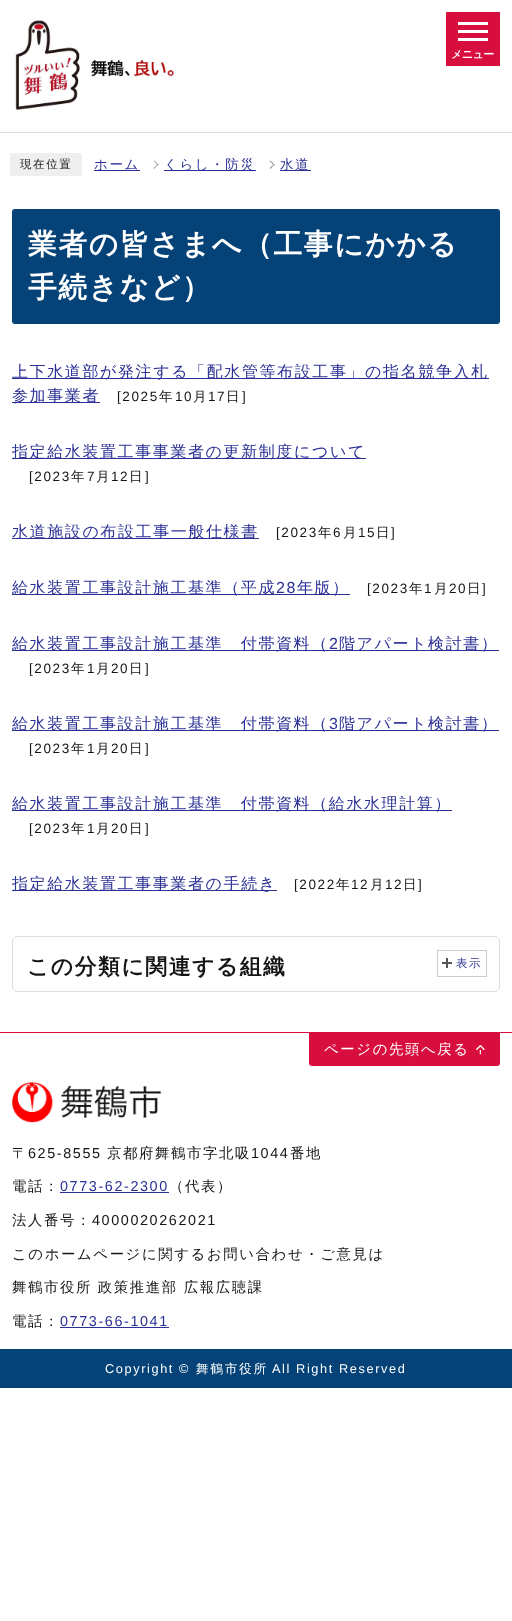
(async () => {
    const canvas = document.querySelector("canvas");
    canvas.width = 512;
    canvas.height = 1621;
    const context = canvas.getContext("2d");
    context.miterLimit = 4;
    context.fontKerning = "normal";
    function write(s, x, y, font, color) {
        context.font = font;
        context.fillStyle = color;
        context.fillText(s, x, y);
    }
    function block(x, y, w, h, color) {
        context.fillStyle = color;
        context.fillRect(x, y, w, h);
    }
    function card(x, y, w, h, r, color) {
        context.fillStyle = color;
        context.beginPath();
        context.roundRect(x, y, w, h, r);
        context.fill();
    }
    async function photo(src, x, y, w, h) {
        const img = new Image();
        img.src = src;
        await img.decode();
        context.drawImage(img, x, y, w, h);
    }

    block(0, 0, 512, 1621, "rgb(255, 255, 255)");
    block(0, 132, 512, 1, "rgb(221, 221, 221)");
    await photo("media/1.png", 15, 20, 159, 90);
    block(446, 12, 54, 54, "rgb(216, 14, 63)");
    block(458, 22, 30, 3, "rgb(255, 255, 255)");
    block(458, 30, 30, 3, "rgb(255, 255, 255)");
    block(458, 38, 30, 3, "rgb(255, 255, 255)");
    context.letterSpacing = "-0.5px";
    write("メニュー", 451, 58, "bold 11px WenQuanYi Zen Hei", "rgb(255, 255, 255)");
    card(10, 153, 72, 23, 2, "rgb(239, 239, 239)");
    context.letterSpacing = "1.6px";
    write("現在位置", 20, 168, "500 11.5px WenQuanYi Zen Hei", "rgb(21, 21, 21)");
    block(94, 170, 46, 1, "rgb(43, 48, 149)");
    write("ホーム", 94, 169, "500 13.5px WenQuanYi Zen Hei", "rgb(43, 48, 149)");
    context.fillStyle = "rgb(153, 153, 153)";
    context.beginPath();
    context.moveTo(153.5, 161);
    context.lineTo(154, 160.5);
    context.lineTo(158.5, 164.5);
    context.lineTo(158, 165.5);
    context.closePath();
    context.fill();
    context.beginPath();
    context.moveTo(153.5, 168);
    context.lineTo(158, 164);
    context.lineTo(158.5, 164.5);
    context.lineTo(154, 169);
    context.closePath();
    context.fill();
    block(164, 170, 92, 1, "rgb(43, 48, 149)");
    write("くらし・防災", 164, 169, "500 13.5px WenQuanYi Zen Hei", "rgb(43, 48, 149)");
    context.fillStyle = "rgb(153, 153, 153)";
    context.beginPath();
    context.moveTo(269.5, 161);
    context.lineTo(270.5, 160.5);
    context.lineTo(274.5, 164.5);
    context.lineTo(274, 165.5);
    context.closePath();
    context.fill();
    context.beginPath();
    context.moveTo(269.5, 168);
    context.lineTo(274, 164);
    context.lineTo(274.5, 164.5);
    context.lineTo(270.5, 169);
    context.closePath();
    context.fill();
    block(280, 170, 31, 1, "rgb(43, 48, 149)");
    write("水道", 280, 169, "500 13.5px WenQuanYi Zen Hei", "rgb(43, 48, 149)");
    card(12, 209, 488, 115, 3, "rgb(4, 66, 120)");
    write("業者の皆さまへ（工事にかかる", 28, 254, "bold 28.75px WenQuanYi Zen Hei", "rgb(255, 255, 255)");
    write("手続きなど）", 28, 297, "bold 28.75px WenQuanYi Zen Hei", "rgb(255, 255, 255)");
    block(12, 378, 477, 1, "rgb(43, 48, 149)");
    write("上下水道部が発注する「配水管等布設工事」の指名競争入札", 12, 377, "500 16px WenQuanYi Zen Hei", "rgb(43, 48, 149)");
    block(12, 402, 88, 1, "rgb(43, 48, 149)");
    write("参加事業者", 12, 401, "500 16px WenQuanYi Zen Hei", "rgb(43, 48, 149)");
    write("[2025", 117, 401, "13.5px Liberation Sans", "rgb(21, 21, 21)");
    write("年", 159, 401, "500 13.5px WenQuanYi Zen Hei", "rgb(21, 21, 21)");
    write("10", 175, 401, "13.5px Liberation Sans", "rgb(21, 21, 21)");
    write("月", 193, 401, "500 13.5px WenQuanYi Zen Hei", "rgb(21, 21, 21)");
    write("17", 208, 401, "13.5px Liberation Sans", "rgb(21, 21, 21)");
    write("日", 226, 401, "500 13.5px WenQuanYi Zen Hei", "rgb(21, 21, 21)");
    write("]", 242, 401, "13.5px Liberation Sans", "rgb(21, 21, 21)");
    block(12, 458, 354, 1, "rgb(43, 48, 149)");
    write("指定給水装置工事事業者の更新制度について", 12, 457, "500 16px WenQuanYi Zen Hei", "rgb(43, 48, 149)");
    write("[2023", 29, 481, "13.5px Liberation Sans", "rgb(21, 21, 21)");
    write("年", 71, 481, "500 13.5px WenQuanYi Zen Hei", "rgb(21, 21, 21)");
    write("7", 87, 481, "13.5px Liberation Sans", "rgb(21, 21, 21)");
    write("月", 96, 481, "500 13.5px WenQuanYi Zen Hei", "rgb(21, 21, 21)");
    write("12", 111, 481, "13.5px Liberation Sans", "rgb(21, 21, 21)");
    write("日", 129, 481, "500 13.5px WenQuanYi Zen Hei", "rgb(21, 21, 21)");
    write("]", 145, 481, "13.5px Liberation Sans", "rgb(21, 21, 21)");
    block(12, 538, 247, 1, "rgb(43, 48, 149)");
    write("水道施設の布設工事一般仕様書", 12, 537, "500 16px WenQuanYi Zen Hei", "rgb(43, 48, 149)");
    write("[2023", 276, 537, "13.5px Liberation Sans", "rgb(21, 21, 21)");
    write("年", 318, 537, "500 13.5px WenQuanYi Zen Hei", "rgb(21, 21, 21)");
    write("6", 333, 537, "13.5px Liberation Sans", "rgb(21, 21, 21)");
    write("月", 343, 537, "500 13.5px WenQuanYi Zen Hei", "rgb(21, 21, 21)");
    write("15", 358, 537, "13.5px Liberation Sans", "rgb(21, 21, 21)");
    write("日", 376, 537, "500 13.5px WenQuanYi Zen Hei", "rgb(21, 21, 21)");
    write("]", 391, 537, "13.5px Liberation Sans", "rgb(21, 21, 21)");
    block(12, 594, 338, 1, "rgb(43, 48, 149)");
    write("給水装置工事設計施工基準（平成", 12, 593, "500 16px WenQuanYi Zen Hei", "rgb(43, 48, 149)");
    write("28", 276, 593, "16px Liberation Sans", "rgb(43, 48, 149)");
    write("年版）", 297, 593, "500 16px WenQuanYi Zen Hei", "rgb(43, 48, 149)");
    write("[2023", 367, 593, "13.5px Liberation Sans", "rgb(21, 21, 21)");
    write("年", 409, 593, "500 13.5px WenQuanYi Zen Hei", "rgb(21, 21, 21)");
    write("1", 424, 593, "13.5px Liberation Sans", "rgb(21, 21, 21)");
    write("月", 434, 593, "500 13.5px WenQuanYi Zen Hei", "rgb(21, 21, 21)");
    write("20", 449, 593, "13.5px Liberation Sans", "rgb(21, 21, 21)");
    write("日", 467, 593, "500 13.5px WenQuanYi Zen Hei", "rgb(21, 21, 21)");
    write("]", 482, 593, "13.5px Liberation Sans", "rgb(21, 21, 21)");
    block(12, 650, 487, 1, "rgb(43, 48, 149)");
    write("給水装置工事設計施工基準　付帯資料（", 12, 649, "500 16px WenQuanYi Zen Hei", "rgb(43, 48, 149)");
    write("2", 329, 649, "16px Liberation Sans", "rgb(43, 48, 149)");
    write("階アパート検討書）", 339, 649, "500 16px WenQuanYi Zen Hei", "rgb(43, 48, 149)");
    write("[2023", 29, 673, "13.5px Liberation Sans", "rgb(21, 21, 21)");
    write("年", 71, 673, "500 13.5px WenQuanYi Zen Hei", "rgb(21, 21, 21)");
    write("1", 87, 673, "13.5px Liberation Sans", "rgb(21, 21, 21)");
    write("月", 96, 673, "500 13.5px WenQuanYi Zen Hei", "rgb(21, 21, 21)");
    write("20", 111, 673, "13.5px Liberation Sans", "rgb(21, 21, 21)");
    write("日", 129, 673, "500 13.5px WenQuanYi Zen Hei", "rgb(21, 21, 21)");
    write("]", 145, 673, "13.5px Liberation Sans", "rgb(21, 21, 21)");
    block(12, 730, 487, 1, "rgb(43, 48, 149)");
    write("給水装置工事設計施工基準　付帯資料（", 12, 729, "500 16px WenQuanYi Zen Hei", "rgb(43, 48, 149)");
    write("3", 329, 729, "16px Liberation Sans", "rgb(43, 48, 149)");
    write("階アパート検討書）", 339, 729, "500 16px WenQuanYi Zen Hei", "rgb(43, 48, 149)");
    write("[2023", 29, 753, "13.5px Liberation Sans", "rgb(21, 21, 21)");
    write("年", 71, 753, "500 13.5px WenQuanYi Zen Hei", "rgb(21, 21, 21)");
    write("1", 87, 753, "13.5px Liberation Sans", "rgb(21, 21, 21)");
    write("月", 96, 753, "500 13.5px WenQuanYi Zen Hei", "rgb(21, 21, 21)");
    write("20", 111, 753, "13.5px Liberation Sans", "rgb(21, 21, 21)");
    write("日", 129, 753, "500 13.5px WenQuanYi Zen Hei", "rgb(21, 21, 21)");
    write("]", 145, 753, "13.5px Liberation Sans", "rgb(21, 21, 21)");
    block(12, 810, 440, 1, "rgb(43, 48, 149)");
    write("給水装置工事設計施工基準　付帯資料（給水水理計算）", 12, 809, "500 16px WenQuanYi Zen Hei", "rgb(43, 48, 149)");
    write("[2023", 29, 833, "13.5px Liberation Sans", "rgb(21, 21, 21)");
    write("年", 71, 833, "500 13.5px WenQuanYi Zen Hei", "rgb(21, 21, 21)");
    write("1", 87, 833, "13.5px Liberation Sans", "rgb(21, 21, 21)");
    write("月", 96, 833, "500 13.5px WenQuanYi Zen Hei", "rgb(21, 21, 21)");
    write("20", 111, 833, "13.5px Liberation Sans", "rgb(21, 21, 21)");
    write("日", 129, 833, "500 13.5px WenQuanYi Zen Hei", "rgb(21, 21, 21)");
    write("]", 145, 833, "13.5px Liberation Sans", "rgb(21, 21, 21)");
    block(12, 890, 265, 1, "rgb(43, 48, 149)");
    write("指定給水装置工事事業者の手続き", 12, 889, "500 16px WenQuanYi Zen Hei", "rgb(43, 48, 149)");
    write("[2022", 294, 889, "13.5px Liberation Sans", "rgb(21, 21, 21)");
    write("年", 336, 889, "500 13.5px WenQuanYi Zen Hei", "rgb(21, 21, 21)");
    write("12", 351, 889, "13.5px Liberation Sans", "rgb(21, 21, 21)");
    write("月", 370, 889, "500 13.5px WenQuanYi Zen Hei", "rgb(21, 21, 21)");
    write("12", 385, 889, "13.5px Liberation Sans", "rgb(21, 21, 21)");
    write("日", 403, 889, "500 13.5px WenQuanYi Zen Hei", "rgb(21, 21, 21)");
    write("]", 418, 889, "13.5px Liberation Sans", "rgb(21, 21, 21)");
    context.beginPath();
    context.roundRect(12.5, 936.5, 487, 55, 4.5);
    context.strokeStyle = "rgb(221, 221, 221)";
    context.stroke();
    write("この分類に関連する組織", 27, 974, "bold 21.75px WenQuanYi Zen Hei", "rgb(21, 21, 21)");
    context.strokeStyle = "rgb(204, 204, 204)";
    context.strokeRect(437.5, 950.5, 49, 26);
    block(442, 962, 10, 2, "rgb(85, 85, 85)");
    block(446, 958, 2, 10, "rgb(85, 85, 85)");
    write("表示", 456, 967, "500 11.5px WenQuanYi Zen Hei", "rgb(43, 48, 149)");
    block(0, 1032, 512, 1, "rgb(215, 14, 63)");
    context.fillStyle = "rgb(216, 14, 63)";
    context.beginPath();
    context.roundRect(309, 1033, 191, 33, [0, 0, 3, 3]);
    context.fill();
    await photo("media/2.png", 476, 1045, 9, 10);
    write("ページの先頭へ戻る", 324, 1054, "500 14.4px WenQuanYi Zen Hei", "rgb(255, 255, 255)");
    await photo("media/3.png", 12, 1082, 150, 41);
    write("〒", 12, 1158, "500 14.4px WenQuanYi Zen Hei", "rgb(21, 21, 21)");
    write("625-8555", 28, 1158, "14.4px Liberation Sans", "rgb(21, 21, 21)");
    write("京都府舞鶴市字北吸", 107, 1158, "500 14.4px WenQuanYi Zen Hei", "rgb(21, 21, 21)");
    write("1044", 251, 1158, "14.4px Liberation Sans", "rgb(21, 21, 21)");
    write("番地", 290, 1158, "500 14.4px WenQuanYi Zen Hei", "rgb(21, 21, 21)");
    write("電話：", 12, 1191, "500 14.4px WenQuanYi Zen Hei", "rgb(21, 21, 21)");
    write("0773-62-2300", 60, 1191, "14.4px Liberation Sans", "rgb(43, 48, 149)");
    block(60, 1192, 109, 1, "rgb(43, 48, 149)");
    write("（代表）", 169, 1191, "500 14.4px WenQuanYi Zen Hei", "rgb(21, 21, 21)");
    write("法人番号：", 12, 1225, "500 14.4px WenQuanYi Zen Hei", "rgb(21, 21, 21)");
    write("4000020262021", 92, 1225, "14.4px Liberation Sans", "rgb(21, 21, 21)");
    write("このホームページに関するお問い合わせ・ご意見は", 12, 1259, "500 14.4px WenQuanYi Zen Hei", "rgb(21, 21, 21)");
    write("舞鶴市役所 政策推進部 広報広聴課", 12, 1292, "500 14.4px WenQuanYi Zen Hei", "rgb(21, 21, 21)");
    write("電話：", 12, 1326, "500 14.4px WenQuanYi Zen Hei", "rgb(21, 21, 21)");
    write("0773-66-1041", 60, 1326, "14.4px Liberation Sans", "rgb(43, 48, 149)");
    block(60, 1327, 109, 1, "rgb(43, 48, 149)");
    block(0, 1349, 512, 39, "rgb(4, 66, 120)");
    write("Copyright ©", 105, 1373, "12.75px Liberation Sans", "rgb(255, 255, 255)");
    write("舞鶴市役所", 196, 1373, "500 12.75px WenQuanYi Zen Hei", "rgb(255, 255, 255)");
    write("All Right Reserved", 272, 1373, "12.75px Liberation Sans", "rgb(255, 255, 255)");
})();
